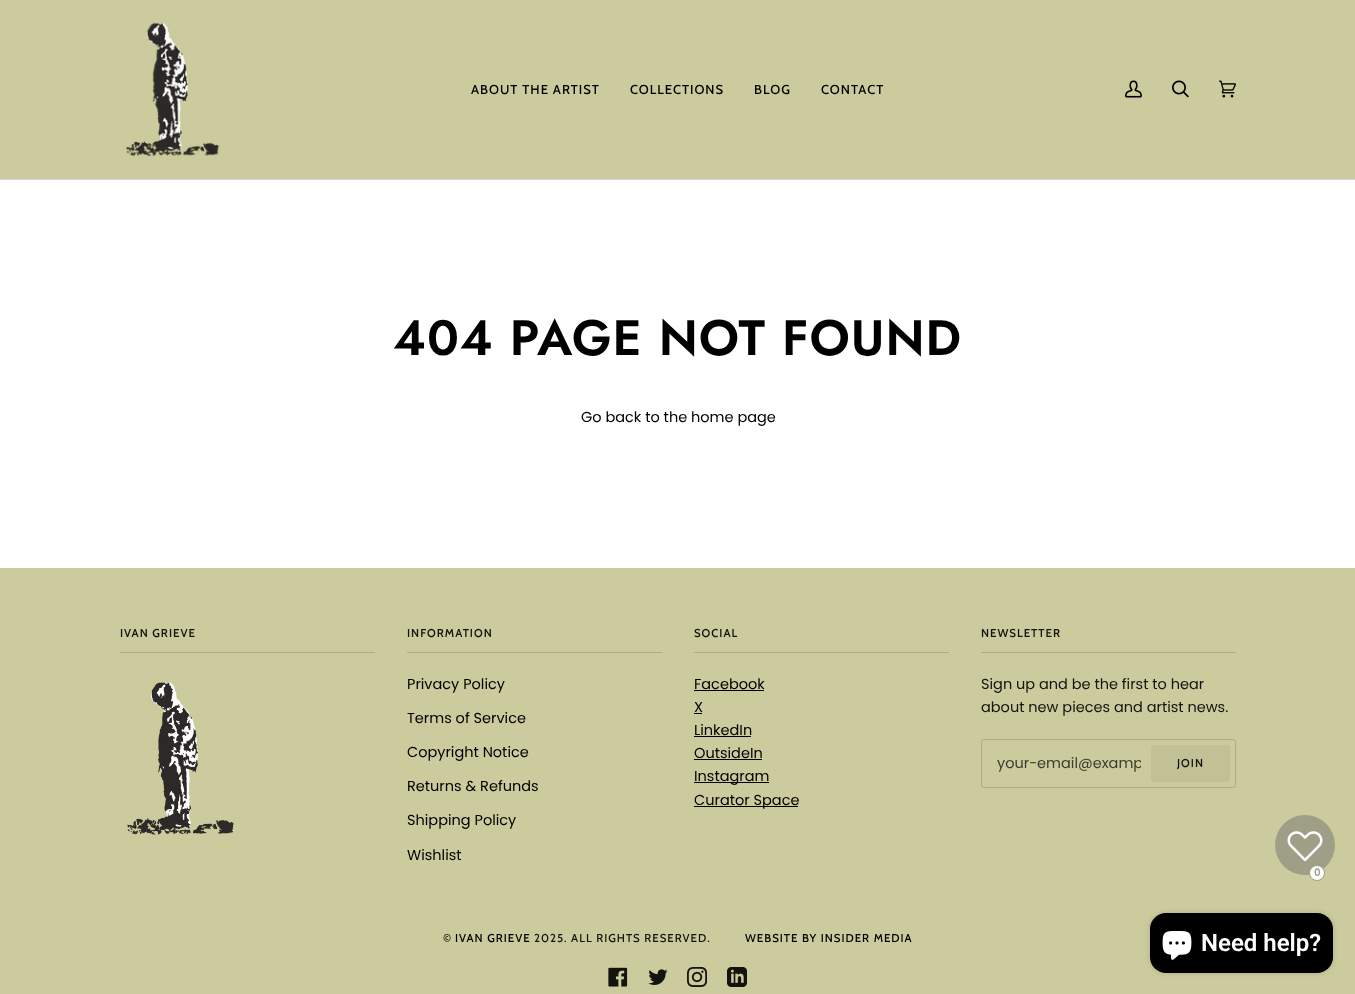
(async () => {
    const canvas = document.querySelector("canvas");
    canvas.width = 1355;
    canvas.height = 994;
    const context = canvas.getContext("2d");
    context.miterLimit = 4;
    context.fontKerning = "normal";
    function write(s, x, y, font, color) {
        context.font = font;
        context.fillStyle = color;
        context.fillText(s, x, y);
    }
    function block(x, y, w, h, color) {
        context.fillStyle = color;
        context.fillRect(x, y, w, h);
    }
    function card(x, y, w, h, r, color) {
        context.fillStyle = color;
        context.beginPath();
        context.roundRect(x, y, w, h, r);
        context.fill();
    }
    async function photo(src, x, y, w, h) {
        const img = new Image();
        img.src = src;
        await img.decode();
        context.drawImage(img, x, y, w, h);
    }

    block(0, 0, 1355, 994, "rgb(255, 255, 255)");
    block(0, 0, 1355, 179, "rgb(204, 203, 157)");
    block(0, 179, 1355, 1, "rgb(215, 215, 215)");
    await photo("media/1.png", 125, 22, 95, 135);
    context.letterSpacing = "1px";
    write("ABOUT THE ARTIST", 471, 94, "500 13px Cabin", "rgb(0, 0, 0)");
    write("COLLECTIONS", 630, 94, "500 13px Cabin", "rgb(0, 0, 0)");
    write("BLOG", 754, 94, "500 13px Cabin", "rgb(0, 0, 0)");
    write("CONTACT", 821, 94, "500 13px Cabin", "rgb(0, 0, 0)");
    await photo("media/2.png", 1125, 80, 17, 18);
    await photo("media/3.png", 1172, 80, 17, 18);
    await photo("media/4.png", 1219, 80, 17, 18);
    write("404 PAGE NOT FOUND", 393, 355, "600 49.7px Jost", "rgb(0, 0, 0)");
    context.letterSpacing = "0px";
    write("Go back to the home page", 581, 422, "14.5px Poppins", "rgb(0, 0, 0)");
    block(0, 568, 1355, 426, "rgb(204, 203, 157)");
    block(120, 652, 255, 1, "rgb(173, 173, 133)");
    context.letterSpacing = "1px";
    write("IVAN GRIEVE", 120, 637, "600 11.4px Cabin", "rgb(20, 20, 16)");
    await photo("media/5.png", 127, 673, 107, 162);
    block(407, 652, 255, 1, "rgb(173, 173, 133)");
    write("INFORMATION", 407, 637, "600 11.4px Cabin", "rgb(20, 20, 16)");
    context.letterSpacing = "0px";
    write("Privacy Policy", 407, 689, "14.5px Poppins", "rgb(0, 0, 0)");
    write("Terms of Service", 407, 723, "14.5px Poppins", "rgb(0, 0, 0)");
    write("Copyright Notice", 407, 757, "14.5px Poppins", "rgb(0, 0, 0)");
    write("Returns & Refunds", 407, 791, "14.5px Poppins", "rgb(0, 0, 0)");
    write("Shipping Policy", 407, 825, "14.5px Poppins", "rgb(0, 0, 0)");
    write("Wishlist", 407, 860, "14.5px Poppins", "rgb(0, 0, 0)");
    block(694, 652, 255, 1, "rgb(173, 173, 133)");
    context.letterSpacing = "1px";
    write("SOCIAL", 694, 637, "600 11.4px Cabin", "rgb(20, 20, 16)");
    context.letterSpacing = "0px";
    write("Facebook", 694, 689, "14.5px Poppins", "rgb(0, 0, 0)");
    block(694, 690, 70, 1, "rgb(0, 0, 0)");
    write("X", 694, 712, "14.5px Poppins", "rgb(0, 0, 0)");
    block(694, 713, 8, 1, "rgb(0, 0, 0)");
    write("LinkedIn", 694, 735, "14.5px Poppins", "rgb(0, 0, 0)");
    block(694, 736, 57, 1, "rgb(0, 0, 0)");
    write("OutsideIn", 694, 758, "14.5px Poppins", "rgb(0, 0, 0)");
    block(694, 759, 68, 1, "rgb(0, 0, 0)");
    block(694, 782, 75, 1, "rgb(0, 0, 0)");
    write("Instagram", 694, 781, "14.5px Poppins", "rgb(0, 0, 0)");
    block(694, 806, 104, 1, "rgb(0, 0, 0)");
    write("Curator Space", 694, 805, "14.5px Poppins", "rgb(0, 0, 0)");
    block(981, 652, 255, 1, "rgb(173, 173, 133)");
    context.letterSpacing = "1px";
    write("NEWSLETTER", 981, 637, "600 11.4px Cabin", "rgb(20, 20, 16)");
    context.letterSpacing = "0px";
    write("Sign up and be the first to hear", 981, 689, "14.5px Poppins", "rgb(20, 20, 16)");
    write("about new pieces and artist news.", 981, 712, "14.5px Poppins", "rgb(20, 20, 16)");
    context.beginPath();
    context.roundRect(981.5, 739.5, 254, 48, 2.5);
    context.strokeStyle = "rgb(173, 173, 133)";
    context.stroke();
    context.save();
    context.beginPath();
    context.rect(997, 753, 144, 21);
    context.clip();
    write("your-email@examp", 997, 768, "14.5px Poppins", "rgb(61, 61, 47)");
    context.restore();
    card(1151, 745, 79, 37, 3, "rgb(194, 193, 149)");
    context.letterSpacing = "1px";
    write("JOIN", 1177, 767, "600 11.4px Cabin", "rgb(20, 20, 16)");
    write("©", 443, 942, "500 11.4px Cabin", "rgb(20, 20, 16)");
    write("IVAN GRIEVE", 455, 942, "500 11.4px Cabin", "rgb(0, 0, 0)");
    write("2025. ALL RIGHTS RESERVED.", 534, 942, "500 11.4px Cabin", "rgb(20, 20, 16)");
    write("WEBSITE BY INSIDER MEDIA", 745, 942, "500 11.4px Cabin", "rgb(0, 0, 0)");
    await photo("media/6.png", 608, 967, 20, 20);
    await photo("media/7.png", 648, 969, 20, 16);
    await photo("media/8.png", 687, 967, 20, 20);
    await photo("media/9.png", 727, 967, 20, 20);
    context.fillStyle = "rgb(159, 158, 134)";
    context.beginPath();
    context.arc(1305, 845, 30, 0, Math.PI * 2);
    context.fill();
    await photo("media/10.png", 1287, 831, 36, 31);
    context.fillStyle = "rgb(255, 255, 255)";
    context.beginPath();
    context.arc(1317, 873, 7.5, 0, Math.PI * 2);
    context.fill();
    context.strokeStyle = "rgb(159, 158, 134)";
    context.stroke();
    context.letterSpacing = "0px";
    write("0", 1314, 876, "bold 10px Poppins", "rgb(159, 158, 134)");
    context.fillStyle = "rgba(0, 0, 0, 0.15)";
    context.filter = "blur(2.5px)";
    context.beginPath();
    context.roundRect(1150, 913, 183, 60, 16);
    context.fill();
    context.filter = "none";
    card(1150, 913, 183, 60, 16, "rgb(0, 0, 0)");
    await photo("media/11.png", 1162, 931, 30, 29);
    write("Need help?", 1201, 951, "600 24px Roboto", "rgb(255, 255, 255)");
})();
